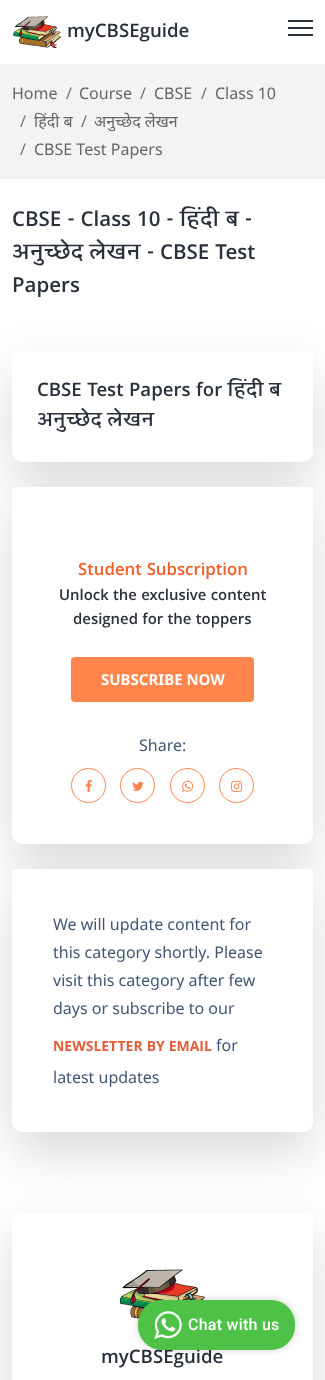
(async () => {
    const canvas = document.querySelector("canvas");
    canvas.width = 325;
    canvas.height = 1380;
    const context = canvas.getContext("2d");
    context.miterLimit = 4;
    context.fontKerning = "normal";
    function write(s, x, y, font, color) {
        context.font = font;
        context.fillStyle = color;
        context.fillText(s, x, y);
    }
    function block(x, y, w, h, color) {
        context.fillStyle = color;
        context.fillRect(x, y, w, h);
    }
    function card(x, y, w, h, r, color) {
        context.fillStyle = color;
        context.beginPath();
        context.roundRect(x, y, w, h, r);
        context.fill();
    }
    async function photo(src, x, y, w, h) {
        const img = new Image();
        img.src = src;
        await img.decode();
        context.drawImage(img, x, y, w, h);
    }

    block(0, 0, 325, 1380, "rgb(255, 255, 255)");
    await photo("media/1.png", 13, 16, 48, 32);
    write("myCBSEguide", 67, 37, "600 20px Khula", "rgb(41, 48, 59)");
    block(288, 20, 25, 2, "rgb(41, 48, 59)");
    block(288, 27, 25, 2, "rgb(41, 48, 59)");
    block(288, 34, 25, 2, "rgb(41, 48, 59)");
    block(0, 64, 325, 115, "rgb(243, 243, 243)");
    write("Home", 12, 99, "16px Noto Sans", "rgb(102, 102, 102)");
    write("/", 66, 99, "16px Noto Sans", "rgb(108, 117, 125)");
    write("Course", 79, 99, "16px Noto Sans", "rgb(102, 102, 102)");
    write("/", 140, 99, "16px Noto Sans", "rgb(108, 117, 125)");
    write("CBSE", 154, 99, "16px Noto Sans", "rgb(102, 102, 102)");
    write("/", 201, 99, "16px Noto Sans", "rgb(108, 117, 125)");
    write("Class 10", 215, 99, "16px Noto Sans", "rgb(102, 102, 102)");
    write("/", 20, 127, "16px Noto Sans", "rgb(108, 117, 125)");
    write("हिंदी ब", 34, 127, "16px Noto Sans", "rgb(102, 102, 102)");
    write("/", 81, 127, "16px Noto Sans", "rgb(108, 117, 125)");
    write("अनुच्छेद लेखन", 94, 127, "16px Noto Sans", "rgb(102, 102, 102)");
    write("/", 20, 155, "16px Noto Sans", "rgb(108, 117, 125)");
    write("CBSE Test Papers", 34, 155, "16px Noto Sans", "rgb(102, 102, 102)");
    write("CBSE - Class 10 - हिंदी ब -", 12, 226, "600 22px Khula", "rgb(41, 48, 59)");
    write("अनुच्छेद लेखन - CBSE Test", 12, 259, "600 22px Khula", "rgb(41, 48, 59)");
    write("Papers", 12, 292, "600 22px Khula", "rgb(41, 48, 59)");
    context.fillStyle = "rgba(0, 0, 0, 0.15)";
    context.filter = "blur(25px)";
    context.beginPath();
    context.roundRect(12, 372, 301, 110, 10);
    context.fill();
    context.filter = "none";
    context.fillStyle = "rgb(255, 255, 255)";
    context.beginPath();
    context.roundRect(12, 352, 301, 110, [4, 4, 10, 10]);
    context.fill();
    write("CBSE Test Papers for हिंदी ब", 37, 396, "600 20px Khula", "rgb(41, 48, 59)");
    write("अनुच्छेद लेखन", 37, 426, "600 20px Khula", "rgb(41, 48, 59)");
    context.fillStyle = "rgba(0, 0, 0, 0.15)";
    context.filter = "blur(25px)";
    context.beginPath();
    context.roundRect(12, 507, 301, 357, 10);
    context.fill();
    context.filter = "none";
    context.fillStyle = "rgb(255, 255, 255)";
    context.beginPath();
    context.roundRect(12, 487, 301, 357, [4, 4, 10, 10]);
    context.fill();
    write("Student Subscription", 78, 575, "600 18px Khula", "rgb(241, 94, 39)");
    write("Unlock the exclusive content", 59, 600, "600 16px Khula", "rgb(41, 48, 59)");
    write("designed for the toppers", 73, 624, "600 16px Khula", "rgb(41, 48, 59)");
    card(71, 657, 183, 45, 4, "rgb(255, 133, 76)");
    write("SUBSCRIBE NOW", 101, 685, "bold 15px Noto Sans", "rgb(255, 255, 255)");
    write("Share:", 139, 751, "16px Noto Sans", "rgb(65, 86, 116)");
    context.beginPath();
    context.arc(88.5, 785.5, 17, 0, Math.PI * 2);
    context.strokeStyle = "rgb(255, 133, 76)";
    context.stroke();
    await photo("media/2.png", 85, 779, 7, 13);
    context.beginPath();
    context.arc(137.5, 785.5, 17, 0, Math.PI * 2);
    context.stroke();
    await photo("media/3.png", 132, 781, 12, 10);
    context.beginPath();
    context.arc(187.5, 785.5, 17, 0, Math.PI * 2);
    context.stroke();
    await photo("media/4.png", 182, 780, 12, 12);
    context.beginPath();
    context.arc(236.5, 785.5, 17, 0, Math.PI * 2);
    context.stroke();
    await photo("media/5.png", 231, 780, 12, 12);
    context.fillStyle = "rgba(0, 0, 0, 0.15)";
    context.filter = "blur(25px)";
    context.beginPath();
    context.roundRect(12, 889, 301, 263, 10);
    context.fill();
    context.filter = "none";
    context.fillStyle = "rgb(255, 255, 255)";
    context.beginPath();
    context.roundRect(12, 869, 301, 263, [4, 4, 10, 10]);
    context.fill();
    write("We will update content for", 53, 930, "16px Noto Sans", "rgb(65, 86, 116)");
    write("this category shortly. Please", 53, 958, "16px Noto Sans", "rgb(65, 86, 116)");
    write("visit this category after few", 53, 986, "16px Noto Sans", "rgb(65, 86, 116)");
    write("days or subscribe to our", 53, 1014, "16px Noto Sans", "rgb(65, 86, 116)");
    write("NEWSLETTER BY EMAIL", 53, 1051, "bold 15px Khula", "rgb(226, 94, 56)");
    write("for", 216, 1051, "16px Noto Sans", "rgb(65, 86, 116)");
    write("latest updates", 53, 1083, "16px Noto Sans", "rgb(65, 86, 116)");
    context.save();
    context.beginPath();
    context.moveTo(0, 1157);
    context.lineTo(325, 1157);
    context.lineTo(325, 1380);
    context.lineTo(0, 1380);
    context.closePath();
    context.moveTo(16, 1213);
    context.lineTo(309, 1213);
    context.bezierCurveTo(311, 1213, 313, 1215, 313, 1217);
    context.lineTo(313, 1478);
    context.bezierCurveTo(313, 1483.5, 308.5, 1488, 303, 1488);
    context.lineTo(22, 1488);
    context.bezierCurveTo(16.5, 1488, 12, 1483.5, 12, 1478);
    context.lineTo(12, 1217);
    context.bezierCurveTo(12, 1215, 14, 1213, 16, 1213);
    context.closePath();
    context.clip("evenodd");
    context.fillStyle = "rgba(0, 0, 0, 0.15)";
    context.filter = "blur(25px)";
    context.beginPath();
    context.roundRect(12, 1233, 301, 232, 10);
    context.fill();
    context.filter = "none";
    context.restore();
    await photo("media/6.png", 120, 1269, 86, 56);
    write("myCBSEguide", 101, 1363, "600 20px Khula", "rgb(41, 48, 59)");
    context.fillStyle = "rgba(0, 0, 0, 0.2)";
    context.filter = "blur(3.5px)";
    context.beginPath();
    context.roundRect(138, 1300, 157, 50, 24);
    context.fill();
    context.filter = "none";
    card(138, 1300, 157, 50, 24, "rgb(77, 194, 71)");
    await photo("media/7.png", 154, 1311, 28, 28);
    context.letterSpacing = "0.25px";
    write("Chat with us", 188, 1330, "500 16px Roboto", "rgb(255, 255, 255)");
})();
